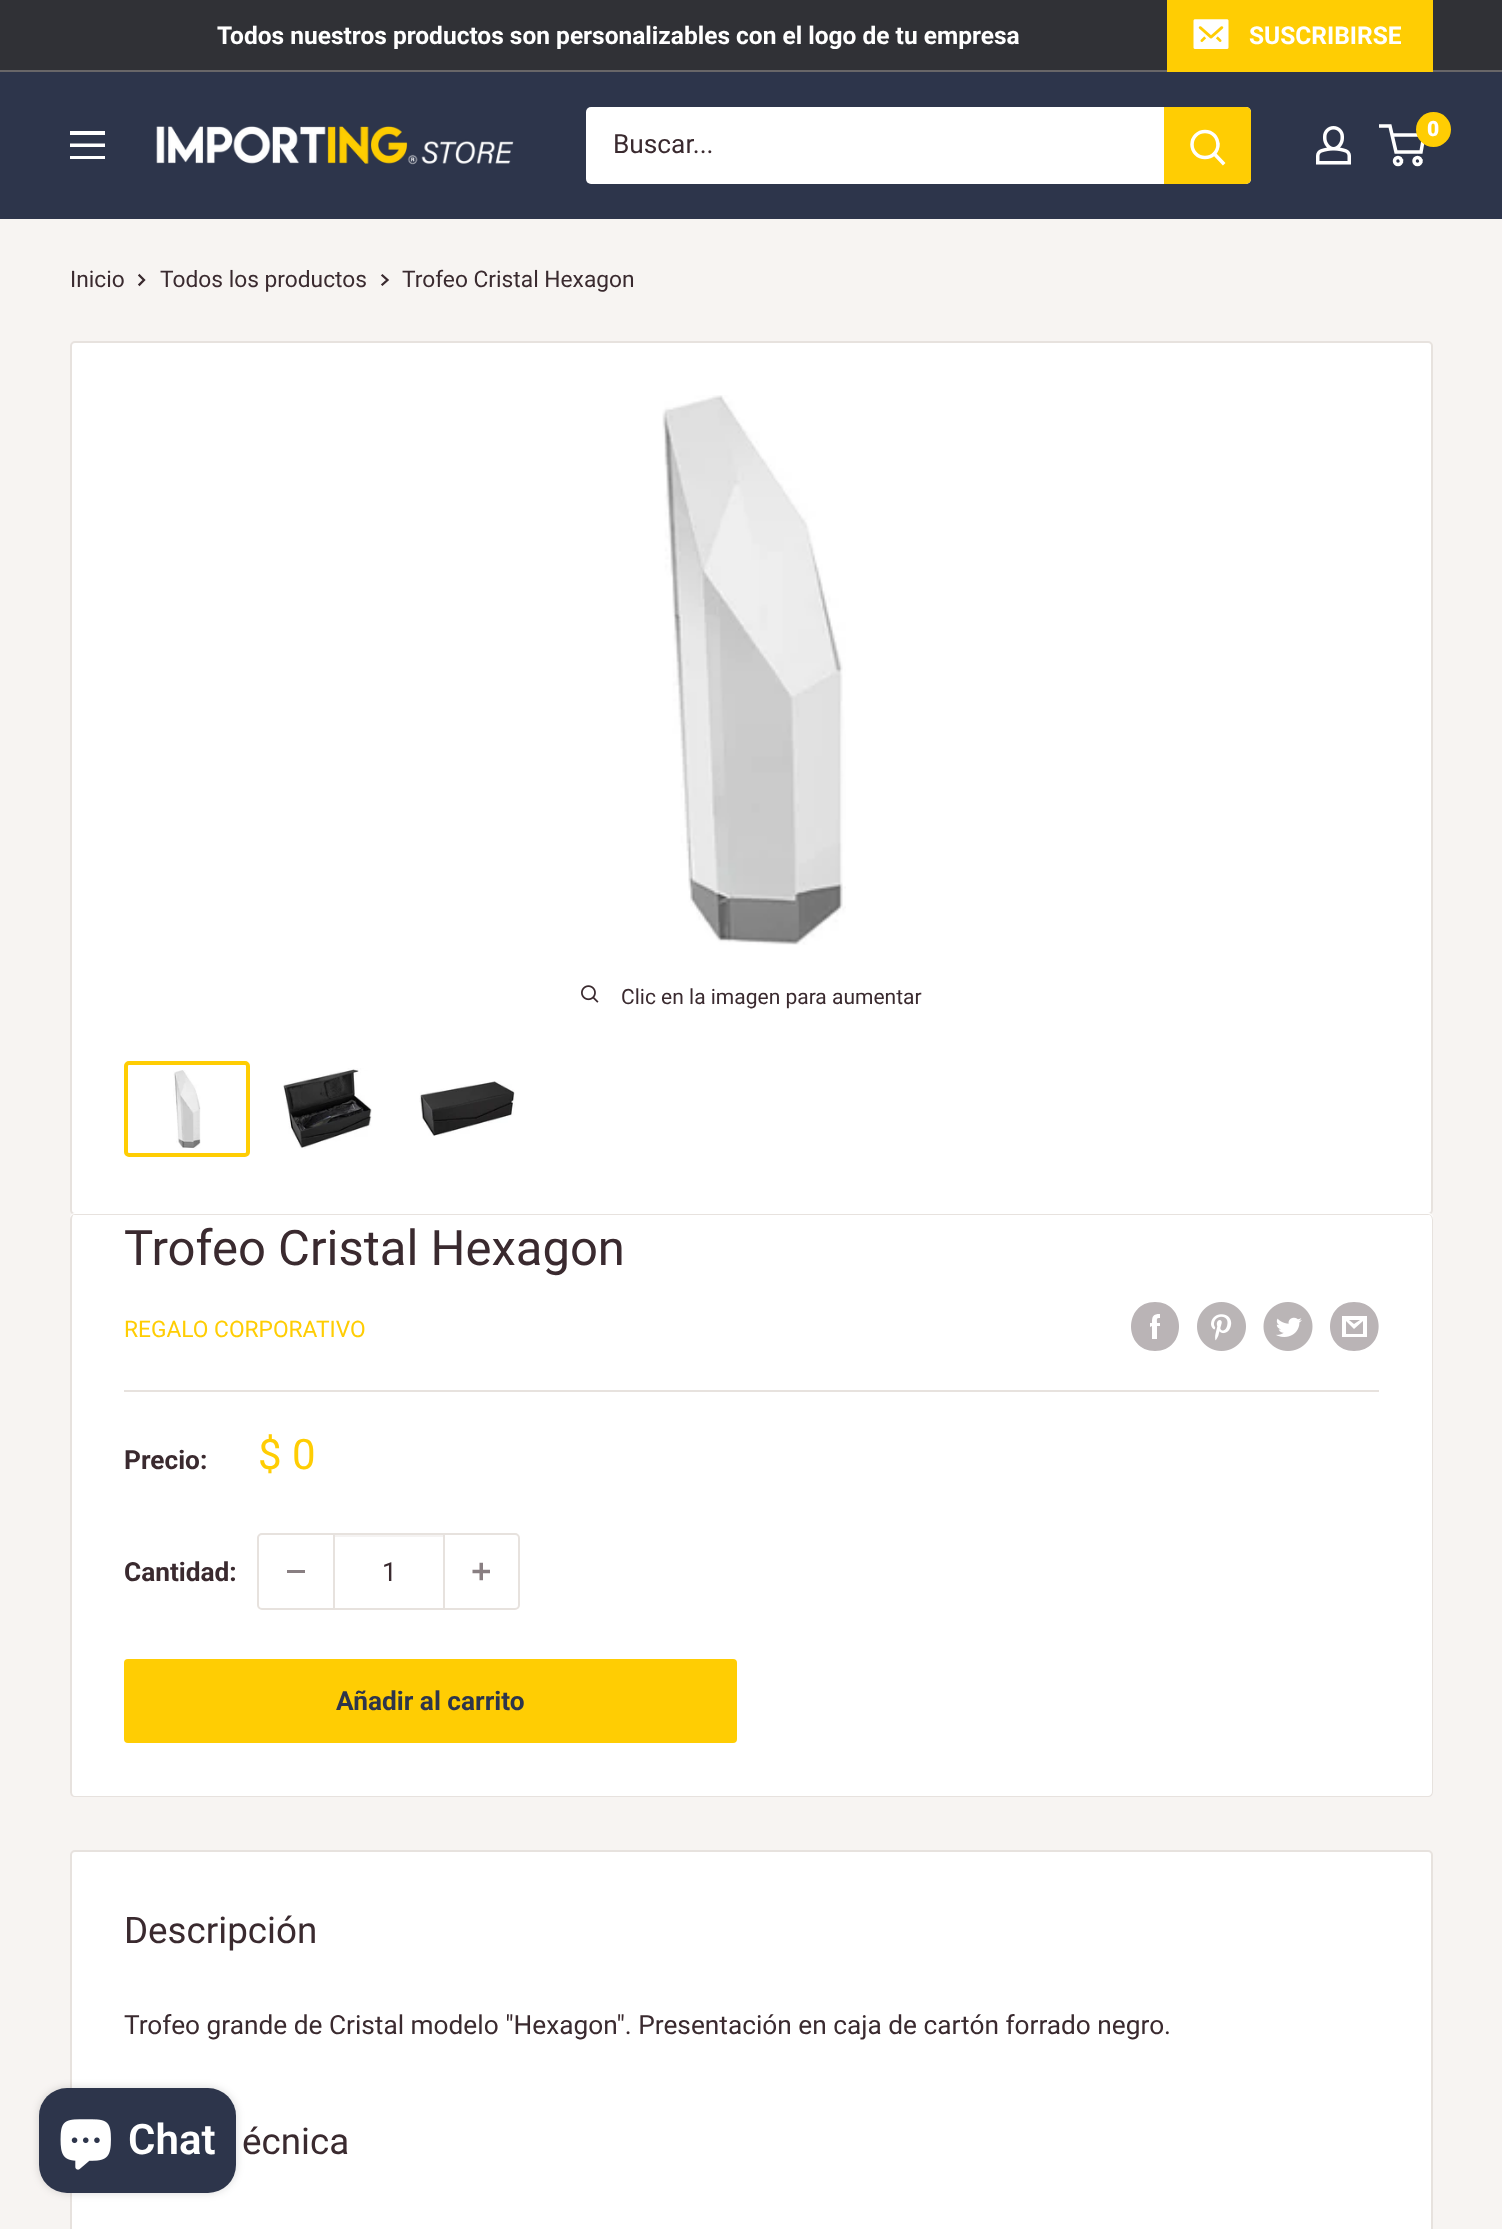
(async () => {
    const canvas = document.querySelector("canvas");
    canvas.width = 1502;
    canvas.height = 2229;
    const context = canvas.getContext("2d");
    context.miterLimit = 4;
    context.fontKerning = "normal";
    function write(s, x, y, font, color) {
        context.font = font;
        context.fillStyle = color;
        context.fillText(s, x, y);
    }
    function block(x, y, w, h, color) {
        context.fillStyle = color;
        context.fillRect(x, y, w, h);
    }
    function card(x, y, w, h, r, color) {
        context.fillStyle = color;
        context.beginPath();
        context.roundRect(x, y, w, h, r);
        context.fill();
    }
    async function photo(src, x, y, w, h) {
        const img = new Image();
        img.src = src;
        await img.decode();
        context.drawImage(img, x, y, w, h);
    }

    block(0, 0, 1502, 2229, "rgb(247, 244, 242)");
    block(0, 0, 1502, 70, "rgb(48, 49, 54)");
    block(0, 70, 1502, 2, "rgb(104, 102, 104)");
    write("Todos nuestros productos son personalizables con el logo de tu empresa", 217, 44, "bold 24.5px Roboto", "rgb(255, 255, 255)");
    context.fillStyle = "rgb(255, 205, 3)";
    context.beginPath();
    context.moveTo(1167, 2);
    context.lineTo(1167, 72);
    context.lineTo(1433, 72);
    context.lineTo(1433, 70);
    context.lineTo(1167, 70);
    context.closePath();
    context.fill();
    block(1167, 0, 266, 70, "rgb(255, 205, 3)");
    await photo("media/1.png", 1193, 19, 36, 30);
    write("SUSCRIBIRSE", 1249, 44, "bold 24.5px Roboto", "rgb(255, 255, 255)");
    block(0, 72, 1502, 147, "rgb(45, 53, 75)");
    context.fillStyle = "rgb(255, 255, 255)";
    context.beginPath();
    context.moveTo(70, 156);
    context.lineTo(105, 156);
    context.lineTo(105, 159);
    context.lineTo(70, 159);
    context.closePath();
    context.moveTo(70, 131);
    context.lineTo(105, 131);
    context.lineTo(105, 135);
    context.lineTo(70, 135);
    context.closePath();
    context.moveTo(70, 143.5);
    context.lineTo(105, 143.5);
    context.lineTo(105, 147);
    context.lineTo(70, 147);
    context.closePath();
    context.fill("evenodd");
    await photo("media/2.png", 156, 126, 358, 39);
    card(586, 107, 665, 77, 5, "rgb(255, 255, 255)");
    write("Buscar...", 613, 153, "26.25px Roboto", "rgb(58, 42, 47)");
    context.fillStyle = "rgb(255, 205, 3)";
    context.beginPath();
    context.roundRect(1164, 107, 87, 77, [0, 5, 5, 0]);
    context.fill();
    context.beginPath();
    context.moveTo(1223, 163);
    context.lineTo(1214.5, 154);
    context.strokeStyle = "rgb(255, 255, 255)";
    context.lineWidth = 3.5;
    context.lineCap = "square";
    context.stroke();
    context.beginPath();
    context.arc(1205, 144.5, 13, 0, Math.PI * 2);
    context.stroke();
    await photo("media/3.png", 1316, 126, 35, 39);
    context.beginPath();
    context.arc(1398, 161, 3.5, 0, Math.PI * 2);
    context.stroke();
    context.beginPath();
    context.arc(1417.5, 161, 3.5, 0, Math.PI * 2);
    context.stroke();
    context.beginPath();
    context.moveTo(1392, 135);
    context.lineTo(1424, 135);
    context.lineTo(1421, 152);
    context.lineTo(1396, 152);
    context.lineTo(1390, 126);
    context.lineTo(1379, 126);
    context.lineCap = "butt";
    context.stroke();
    context.beginPath();
    context.arc(1433.5, 129.5, 17.5, 0, Math.PI * 2);
    context.fill();
    write("0", 1427, 136, "900 21px Roboto", "rgb(255, 255, 255)");
    write("Inicio", 70, 287, "22.75px Roboto", "rgb(58, 42, 47)");
    context.beginPath();
    context.moveTo(139.5, 275.5);
    context.lineTo(144, 280);
    context.lineTo(139.5, 284.5);
    context.strokeStyle = "rgb(58, 42, 47)";
    context.lineWidth = 2.3;
    context.lineCap = "square";
    context.stroke();
    write("Todos los productos", 160, 287, "22.75px Roboto", "rgb(58, 42, 47)");
    context.beginPath();
    context.moveTo(382.5, 275.5);
    context.lineTo(387.5, 280);
    context.lineTo(382.5, 284.5);
    context.stroke();
    write("Trofeo Cristal Hexagon", 402, 287, "22.75px Roboto", "rgb(58, 42, 47)");
    context.fillStyle = "rgb(255, 255, 255)";
    context.beginPath();
    context.roundRect(71, 342, 1361, 872, 4);
    context.fill();
    context.strokeStyle = "rgb(231, 226, 222)";
    context.lineWidth = 2;
    context.stroke();
    await photo("media/4.png", 662, 395, 184, 550);
    await photo("media/5.png", 581, 985, 18, 18);
    write("Clic en la imagen para aumentar", 621, 1004, "21px Roboto", "rgb(58, 42, 47)");
    context.beginPath();
    context.roundRect(126, 1063, 122, 92, 3);
    context.strokeStyle = "rgb(255, 205, 3)";
    context.lineWidth = 4;
    context.stroke();
    await photo("media/6.png", 173, 1070, 28, 79);
    await photo("media/7.png", 283, 1068, 89, 81);
    await photo("media/8.png", 419, 1081, 96, 55);
    context.fillStyle = "rgb(255, 255, 255)";
    context.beginPath();
    context.moveTo(75, 1213);
    context.bezierCurveTo(71, 1213, 70, 1216, 70, 1220);
    context.bezierCurveTo(70, 1217, 72, 1214, 75, 1214);
    context.lineTo(1428, 1214);
    context.bezierCurveTo(1430, 1214, 1432, 1216, 1433, 1218);
    context.bezierCurveTo(1433, 1215, 1431, 1213, 1428, 1213);
    context.closePath();
    context.fill();
    card(70, 1215, 1363, 582, 5, "rgb(255, 255, 255)");
    context.fillStyle = "rgb(231, 226, 222)";
    context.beginPath();
    context.moveTo(75, 1214);
    context.lineTo(1428, 1214);
    context.bezierCurveTo(1431, 1214, 1433, 1217, 1433, 1220);
    context.lineTo(1433, 1792);
    context.bezierCurveTo(1433, 1795, 1431, 1797, 1428, 1797);
    context.lineTo(75, 1797);
    context.bezierCurveTo(72, 1797, 70, 1795, 70, 1792);
    context.lineTo(70, 1220);
    context.bezierCurveTo(70, 1217, 72, 1214, 75, 1214);
    context.closePath();
    context.moveTo(75, 1214);
    context.lineTo(1428, 1214);
    context.bezierCurveTo(1430, 1214, 1432, 1217, 1432, 1220);
    context.lineTo(1432, 1792);
    context.bezierCurveTo(1432, 1794, 1430, 1796, 1428, 1796);
    context.lineTo(75, 1796);
    context.bezierCurveTo(73, 1796, 72, 1794, 72, 1792);
    context.lineTo(72, 1220);
    context.bezierCurveTo(72, 1217, 73, 1214, 75, 1214);
    context.closePath();
    context.fill("evenodd");
    write("Trofeo Cristal Hexagon", 124, 1265, "49px Roboto", "rgb(58, 42, 47)");
    write("REGALO CORPORATIVO", 124, 1337, "22.75px Roboto", "rgb(255, 205, 3)");
    context.fillStyle = "rgb(186, 180, 182)";
    context.beginPath();
    context.moveTo(1155, 1351);
    context.bezierCurveTo(1123, 1351, 1123, 1302, 1155, 1302);
    context.bezierCurveTo(1187, 1302, 1187, 1351, 1155, 1351);
    context.closePath();
    context.moveTo(1160, 1323);
    context.lineTo(1157, 1323);
    context.bezierCurveTo(1157, 1319, 1156, 1318, 1160, 1318);
    context.lineTo(1160, 1314);
    context.bezierCurveTo(1153, 1314, 1152, 1316, 1152, 1323);
    context.lineTo(1150, 1323);
    context.lineTo(1150, 1327);
    context.lineTo(1152, 1326);
    context.lineTo(1152, 1339);
    context.lineTo(1157, 1339);
    context.lineTo(1157, 1326);
    context.lineTo(1160, 1326);
    context.closePath();
    context.fill("evenodd");
    await photo("media/9.png", 1197, 1302, 49, 49);
    await photo("media/10.png", 1263, 1302, 50, 49);
    context.beginPath();
    context.moveTo(1354, 1351);
    context.bezierCurveTo(1322, 1351, 1322, 1302, 1354, 1302);
    context.bezierCurveTo(1387, 1302, 1387, 1351, 1354, 1351);
    context.closePath();
    context.moveTo(1349, 1320);
    context.lineTo(1360, 1320);
    context.lineTo(1354, 1324);
    context.closePath();
    context.moveTo(1363, 1321);
    context.lineTo(1363, 1334);
    context.lineTo(1346, 1334);
    context.lineTo(1346, 1321);
    context.lineTo(1354, 1329);
    context.closePath();
    context.moveTo(1367, 1316);
    context.lineTo(1342, 1316);
    context.lineTo(1342, 1337);
    context.lineTo(1367, 1337);
    context.closePath();
    context.fill();
    block(124, 1390, 1255, 2, "rgb(231, 226, 222)");
    write("Precio:", 124, 1469, "bold 26.25px Roboto", "rgb(58, 42, 47)");
    write("$ 0", 258, 1469, "42px Roboto", "rgb(255, 205, 3)");
    write("Cantidad:", 124, 1581, "bold 26.25px Roboto", "rgb(58, 42, 47)");
    context.beginPath();
    context.roundRect(258, 1534, 261, 75, 4);
    context.strokeStyle = "rgb(231, 226, 222)";
    context.lineWidth = 2;
    context.stroke();
    block(287, 1570, 18, 3, "rgb(137, 127, 130)");
    block(334, 1535, 109, 2, "rgb(245, 243, 242)");
    block(443, 1535, 2, 73, "rgb(231, 226, 222)");
    block(333, 1535, 2, 73, "rgb(231, 226, 222)");
    write("1", 382, 1581, "26.25px Roboto", "rgb(58, 42, 47)");
    await photo("media/11.png", 472, 1562, 18, 19);
    card(124, 1659, 613, 84, 4, "rgb(255, 205, 3)");
    write("Añadir al carrito", 336, 1710, "bold 26.25px Roboto", "rgb(45, 53, 75)");
    context.fillStyle = "rgb(255, 255, 255)";
    context.beginPath();
    context.roundRect(71, 1851, 1361, 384, 4);
    context.fill();
    context.stroke();
    write("Descripción", 124, 1943, "36.75px Roboto", "rgb(58, 42, 47)");
    write("Trofeo grande de Cristal modelo \"Hexagon\". Presentación en caja de cartón forrado negro.", 124, 2034, "26.25px Roboto", "rgb(58, 42, 47)");
    write("écnica", 242, 2154, "36.75px Roboto", "rgb(58, 42, 47)");
    context.fillStyle = "rgba(0, 0, 0, 0.15)";
    context.filter = "blur(4.5px)";
    context.beginPath();
    context.roundRect(39, 2088, 197, 105, 28);
    context.fill();
    context.filter = "none";
    card(39, 2088, 197, 105, 28, "rgb(45, 53, 75)");
    await photo("media/12.png", 60, 2119, 51, 51);
    write("Chat", 128, 2154, "600 42px Roboto", "rgb(255, 255, 255)");
})();
